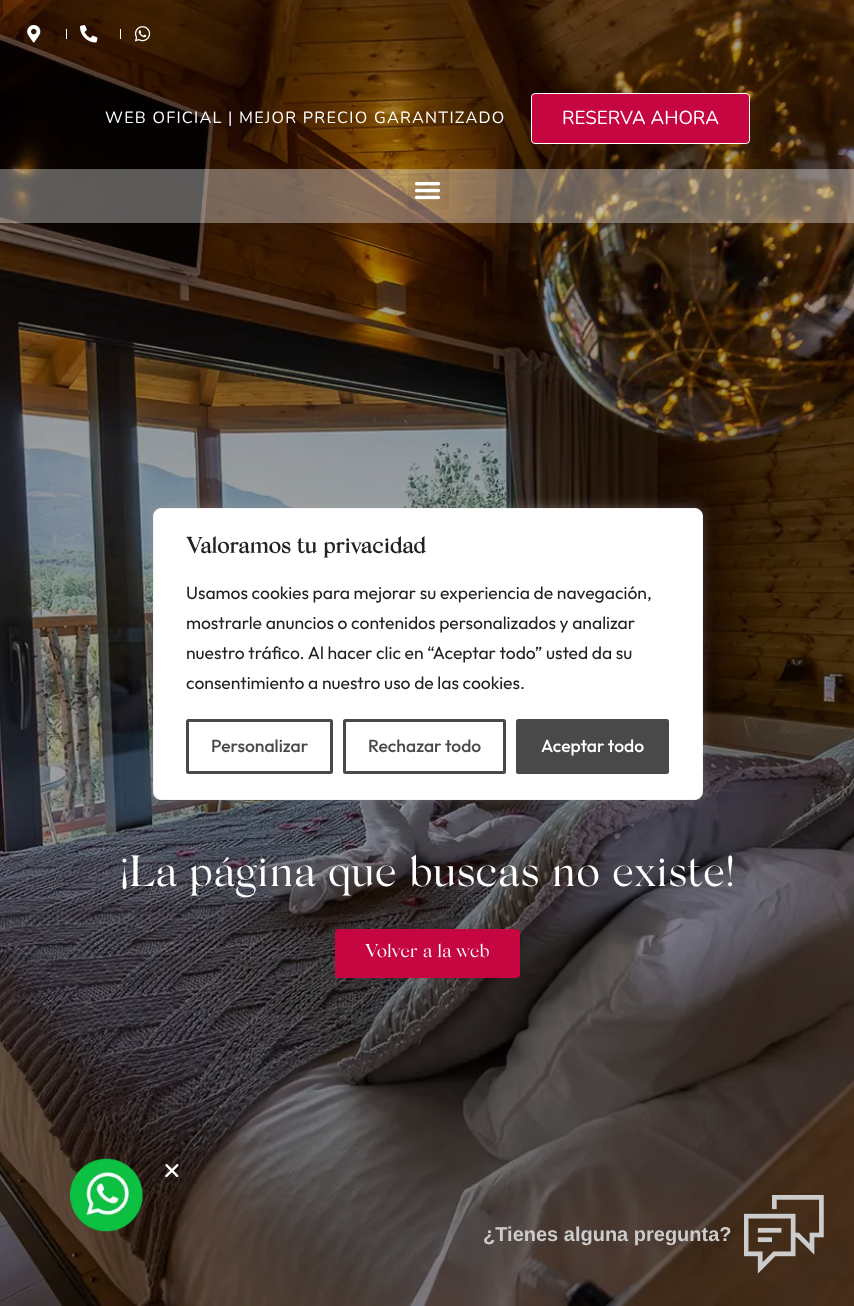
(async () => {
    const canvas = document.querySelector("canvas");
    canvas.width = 854;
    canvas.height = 1306;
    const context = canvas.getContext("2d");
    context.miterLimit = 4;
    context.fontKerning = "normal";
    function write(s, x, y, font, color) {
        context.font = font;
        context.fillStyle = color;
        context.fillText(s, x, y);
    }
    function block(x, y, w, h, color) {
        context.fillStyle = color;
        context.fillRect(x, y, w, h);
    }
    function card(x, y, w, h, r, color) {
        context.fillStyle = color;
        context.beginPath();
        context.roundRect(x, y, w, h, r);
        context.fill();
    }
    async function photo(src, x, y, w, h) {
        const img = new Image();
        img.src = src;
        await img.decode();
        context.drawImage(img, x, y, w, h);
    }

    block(0, 0, 854, 1306, "rgb(255, 255, 255)");
    await photo("media/5.png", 0, 0, 854, 1306);
    await photo("media/1.png", 27, 25, 14, 18);
    block(66, 29, 1, 10, "rgb(255, 255, 255)");
    await photo("media/2.png", 80, 25, 18, 18);
    block(120, 29, 1, 10, "rgb(255, 255, 255)");
    await photo("media/3.png", 134, 26, 17, 16);
    context.letterSpacing = "1.25px";
    write("WEB OFICIAL | MEJOR PRECIO GARANTIZADO", 105, 123, "16.25px Nunito", "rgb(255, 255, 255)");
    context.fillStyle = "rgb(198, 6, 64)";
    context.beginPath();
    context.roundRect(531.5, 93.5, 218, 50, 3.5);
    context.fill();
    context.strokeStyle = "rgb(255, 255, 255)";
    context.stroke();
    context.letterSpacing = "0px";
    write("RESERVA AHORA", 562, 124, "18.75px Nunito", "rgb(255, 255, 255)");
    block(0, 169, 854, 54, "rgba(255, 255, 255, 0.35)");
    block(408, 169, 41, 41, "rgba(0, 0, 0, 0.05)");
    await photo("media/4.png", 414, 182, 27, 18);
    context.fillStyle = "rgba(172, 171, 171, 0.3)";
    context.filter = "blur(6px)";
    context.beginPath();
    context.roundRect(153, 506, 550, 293, 8);
    context.fill();
    context.filter = "none";
    context.fillStyle = "rgb(255, 255, 255)";
    context.beginPath();
    context.roundRect(153.5, 508.5, 549, 291, 7.5);
    context.fill();
    context.strokeStyle = "rgb(244, 244, 244)";
    context.stroke();
    write("Valoramos tu privacidad", 186, 553, "bold 22.5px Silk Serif", "rgb(33, 33, 33)");
    write("Usamos cookies para mejorar su experiencia de navegación,", 186, 599, "17.5px Outfit", "rgb(33, 33, 33)");
    write("mostrarle anuncios o contenidos personalizados y analizar", 186, 629, "17.5px Outfit", "rgb(33, 33, 33)");
    write("nuestro tráfico. Al hacer clic en “Aceptar todo” usted da su", 186, 659, "17.5px Outfit", "rgb(33, 33, 33)");
    write("consentimiento a nuestro uso de las cookies.", 186, 689, "17.5px Outfit", "rgb(33, 33, 33)");
    context.beginPath();
    context.roundRect(187.5, 720.5, 144, 52, 1);
    context.strokeStyle = "rgb(73, 73, 74)";
    context.lineWidth = 3;
    context.stroke();
    write("Personalizar", 211, 752, "500 17.5px Outfit", "rgb(73, 73, 74)");
    context.beginPath();
    context.roundRect(344.5, 720.5, 160, 52, 1);
    context.stroke();
    write("Rechazar todo", 368, 752, "500 17.5px Outfit", "rgb(73, 73, 74)");
    context.beginPath();
    context.roundRect(517.5, 720.5, 150, 52, 1);
    context.fill();
    context.stroke();
    write("Aceptar todo", 541, 752, "500 17.5px Outfit", "rgb(255, 255, 255)");
    write("¡La página que buscas no existe!", 119, 886, "43.75px Silk Serif", "rgb(255, 255, 255)");
    card(335, 929, 185, 49, 4, "rgb(198, 6, 64)");
    write("Volver a la web", 365, 957, "18.75px Silk Serif", "rgb(255, 255, 255)");
    await photo("media/6.png", 70, 1158, 73, 74);
    await photo("media/7.png", 165, 1164, 14, 14);
    write("¿Tienes alguna pregunta?", 483, 1241, "bold 20px Liberation Sans", "rgb(204, 204, 204)");
    await photo("media/8.png", 744, 1195, 80, 79);
})();
